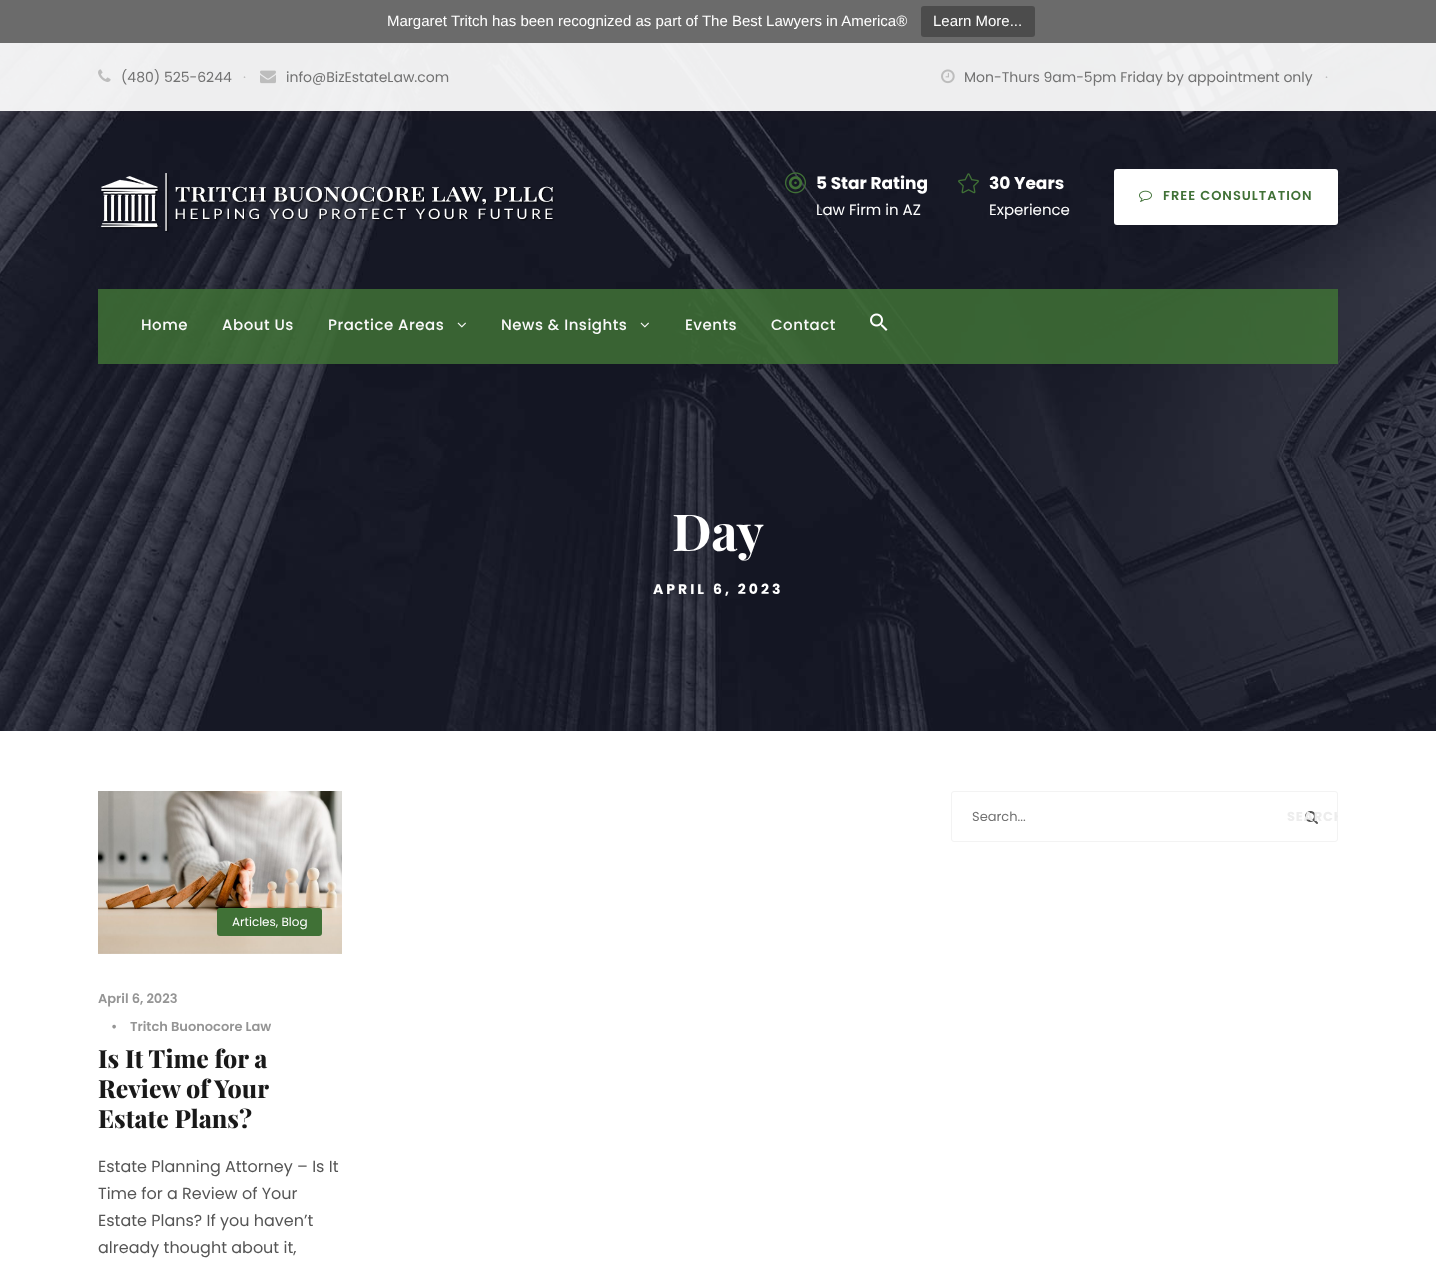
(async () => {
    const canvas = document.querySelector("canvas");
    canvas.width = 1436;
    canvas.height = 1265;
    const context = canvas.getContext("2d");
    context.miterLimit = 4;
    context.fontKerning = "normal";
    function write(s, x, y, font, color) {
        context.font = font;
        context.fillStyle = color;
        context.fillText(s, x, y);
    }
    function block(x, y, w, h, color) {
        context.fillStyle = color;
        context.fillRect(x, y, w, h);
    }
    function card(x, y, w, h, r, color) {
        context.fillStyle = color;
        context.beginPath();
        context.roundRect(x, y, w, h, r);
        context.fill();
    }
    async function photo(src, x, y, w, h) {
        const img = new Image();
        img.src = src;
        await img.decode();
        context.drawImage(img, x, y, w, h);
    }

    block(0, 0, 1436, 1265, "rgb(255, 255, 255)");
    await photo("media/11.png", 0, 43, 1436, 688);
    context.save();
    context.beginPath();
    context.rect(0, 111, 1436, 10);
    context.clip();
    context.fillStyle = "rgba(94, 48, 48, 0.1)";
    context.filter = "blur(12px)";
    context.beginPath();
    context.rect(0, 43, 1436, 68);
    context.fill();
    context.filter = "none";
    context.restore();
    block(0, 0, 1436, 43, "rgb(107, 107, 107)");
    write("Margaret Tritch has been recognized as part of The Best Lawyers in America®", 387, 26, "15px Liberation Sans", "rgb(255, 255, 255)");
    card(921, 6, 114, 31, 3, "rgb(76, 76, 76)");
    write("Learn More...", 933, 26, "15px Liberation Sans", "rgb(255, 255, 255)");
    block(0, 43, 1436, 68, "rgba(255, 255, 255, 0.93)");
    await photo("media/1.png", 98, 69, 13, 13);
    write("(480) 525-6244", 121, 82, "14px Poppins", "rgb(114, 114, 114)");
    write("·", 243, 82, "14px Poppins", "rgb(189, 189, 189)");
    await photo("media/2.png", 260, 70, 16, 14);
    write("info@BizEstateLaw.com", 286, 82, "14px Poppins", "rgb(114, 114, 114)");
    await photo("media/3.png", 941, 69, 14, 15);
    write("Mon-Thurs 9am-5pm Friday by appointment only", 964, 82, "14px Poppins", "rgb(114, 114, 114)");
    write("·", 1325, 82, "14px Poppins", "rgb(189, 189, 189)");
    await photo("media/4.png", 98, 173, 457, 59);
    await photo("media/5.png", 785, 172, 21, 22);
    write("5 Star Rating", 816, 189, "bold 17px Poppins", "rgb(255, 255, 255)");
    write("Law Firm in AZ", 816, 215, "15px Poppins", "rgb(255, 255, 255)");
    await photo("media/6.png", 958, 173, 21, 21);
    write("30 Years", 989, 189, "bold 17px Poppins", "rgb(255, 255, 255)");
    write("Experience", 989, 215, "15px Poppins", "rgb(255, 255, 255)");
    card(1114, 169, 224, 56, 3, "rgb(255, 255, 255)");
    await photo("media/7.png", 1139, 190, 13, 12);
    context.letterSpacing = "1px";
    write("FREE CONSULTATION", 1163, 200, "600 13px Poppins", "rgb(64, 113, 54)");
    block(98, 289, 1240, 75, "rgba(64, 113, 54, 0.85)");
    context.letterSpacing = "0.5px";
    write("Home", 141, 330, "500 15px Poppins", "rgb(249, 249, 249)");
    write("About Us", 222, 330, "500 15px Poppins", "rgb(249, 249, 249)");
    write("Practice Areas", 328, 330, "500 15px Poppins", "rgb(249, 249, 249)");
    await photo("media/8.png", 457, 322, 9, 6);
    write("News & Insights", 501, 330, "500 15px Poppins", "rgb(249, 249, 249)");
    await photo("media/9.png", 640, 322, 9, 6);
    write("Events", 685, 330, "500 15px Poppins", "rgb(249, 249, 249)");
    write("Contact", 771, 330, "500 15px Poppins", "rgb(249, 249, 249)");
    await photo("media/10.png", 870, 313, 18, 18);
    context.letterSpacing = "0px";
    write("Day", 672, 551, "bold 51px Playfair Display", "rgb(255, 255, 255)");
    context.letterSpacing = "3px";
    write("APRIL 6, 2023", 653, 594, "bold 14px Poppins", "rgb(255, 255, 255)");
    context.beginPath();
    context.roundRect(951.5, 791.5, 386, 50, 2.5);
    context.strokeStyle = "rgb(243, 243, 243)";
    context.stroke();
    context.letterSpacing = "0px";
    write("Search...", 972, 821, "13px Poppins", "rgb(114, 114, 114)");
    await photo("media/12.png", 1305, 811, 13, 13);
    context.save();
    context.beginPath();
    context.rect(1287, 791, 51, 51);
    context.clip();
    context.letterSpacing = "0.75px";
    write("SEARCH", 1287, 821, "bold 13px Poppins", "rgb(237, 237, 237)");
    context.restore();
    await photo("media/13.png", 98, 791, 244, 163);
    card(217, 908, 105, 28, 3, "rgb(64, 113, 54)");
    write("Articles, Blog", 232, 926, "12px Poppins", "rgb(255, 255, 255)");
    write("April 6, 2023", 98, 1003, "600 13px Poppins", "rgb(149, 149, 149)");
    write("•", 111, 1031, "600 13px Poppins", "rgb(149, 149, 149)");
    write("Tritch Buonocore Law", 130, 1031, "600 13px Poppins", "rgb(149, 149, 149)");
    write("Is It Time for a", 98, 1068, "800 25px Playfair Display", "rgb(25, 25, 25)");
    write("Review of Your", 98, 1098, "800 25px Playfair Display", "rgb(25, 25, 25)");
    write("Estate Plans?", 98, 1128, "800 25px Playfair Display", "rgb(25, 25, 25)");
    write("Estate Planning Attorney – Is It", 98, 1172, "16px Poppins", "rgb(85, 85, 85)");
    write("Time for a Review of Your", 98, 1199, "16px Poppins", "rgb(85, 85, 85)");
    write("Estate Plans? If you haven’t", 98, 1226, "16px Poppins", "rgb(85, 85, 85)");
    write("already thought about it,", 98, 1253, "16px Poppins", "rgb(85, 85, 85)");
})();
